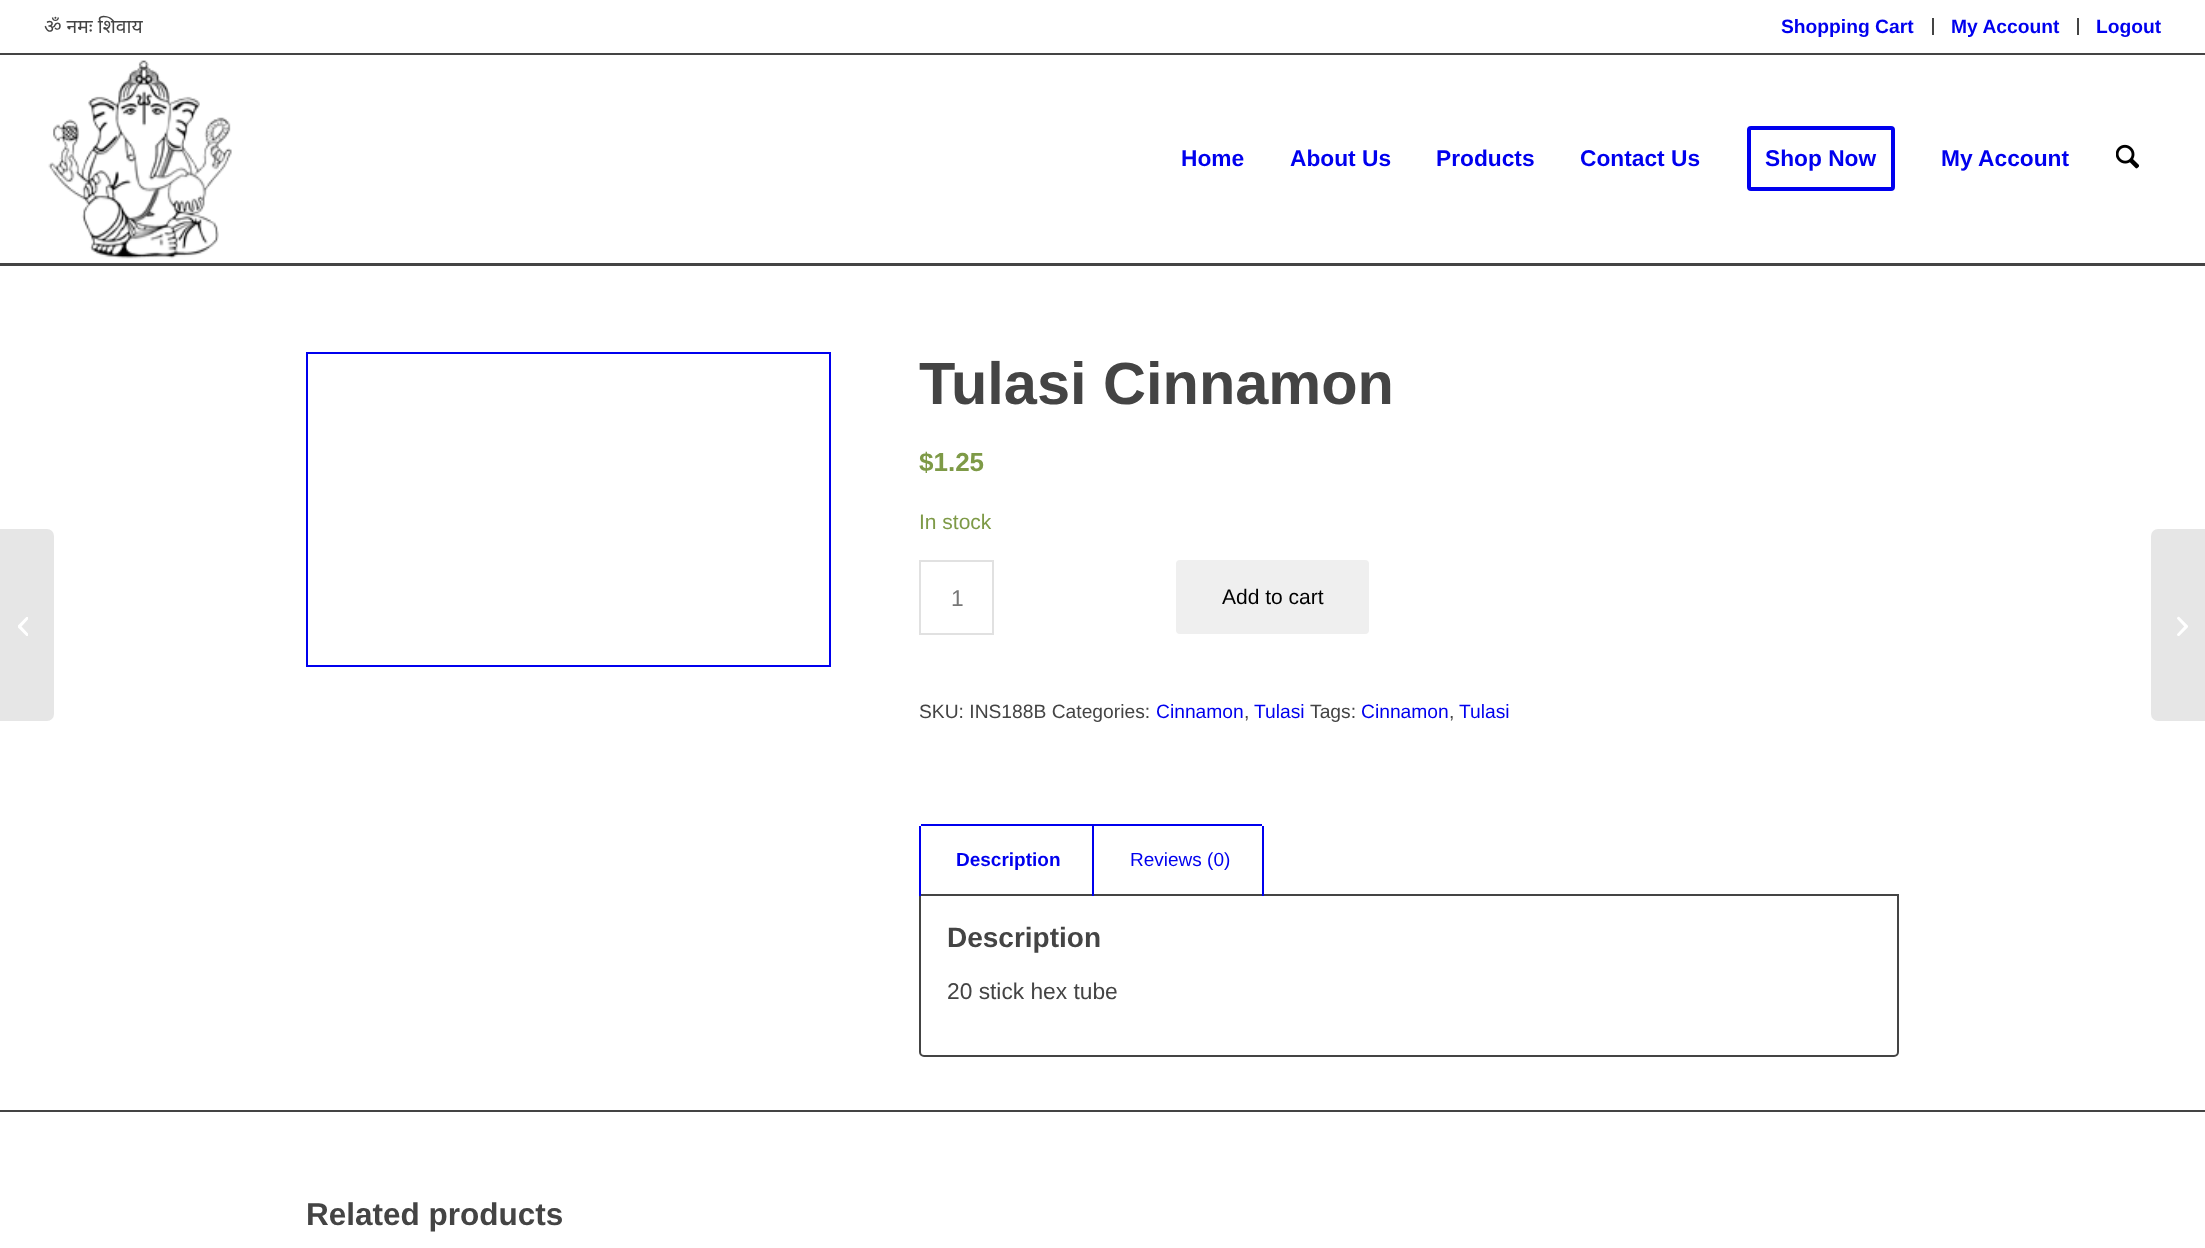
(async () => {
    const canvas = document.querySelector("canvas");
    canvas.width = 2205;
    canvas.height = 1248;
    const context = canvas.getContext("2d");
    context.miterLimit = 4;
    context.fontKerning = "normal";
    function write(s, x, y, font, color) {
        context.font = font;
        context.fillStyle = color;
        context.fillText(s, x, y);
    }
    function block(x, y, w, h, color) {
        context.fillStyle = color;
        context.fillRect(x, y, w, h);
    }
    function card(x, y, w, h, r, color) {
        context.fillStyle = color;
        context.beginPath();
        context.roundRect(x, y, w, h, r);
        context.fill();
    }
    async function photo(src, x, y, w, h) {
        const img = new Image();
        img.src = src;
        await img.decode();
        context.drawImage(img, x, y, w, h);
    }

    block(0, 0, 2205, 1248, "rgb(255, 255, 255)");
    write("ॐ नमः शिवाय", 44, 33, "19.25px Noto Sans", "rgb(68, 68, 68)");
    block(1932, 18, 2, 17, "rgb(68, 68, 68)");
    write("Shopping Cart", 1781, 33, "bold 19.25px Liberation Sans", "rgb(0, 0, 238)");
    block(2077, 18, 2, 17, "rgb(68, 68, 68)");
    write("My Account", 1951, 33, "bold 19.25px Liberation Sans", "rgb(0, 0, 238)");
    write("Logout", 2096, 33, "bold 19.25px Liberation Sans", "rgb(0, 0, 238)");
    block(0, 53, 2205, 2, "rgb(68, 68, 68)");
    await photo("media/1.png", 48, 60, 184, 199);
    write("Home", 1181, 166, "bold 22.75px Liberation Sans", "rgb(0, 0, 238)");
    write("About Us", 1290, 166, "bold 22.75px Liberation Sans", "rgb(0, 0, 238)");
    write("Products", 1436, 166, "bold 22.75px Liberation Sans", "rgb(0, 0, 238)");
    write("Contact Us", 1580, 166, "bold 22.75px Liberation Sans", "rgb(0, 0, 238)");
    context.beginPath();
    context.roundRect(1749, 128, 144, 61, 2);
    context.strokeStyle = "rgb(0, 0, 238)";
    context.lineWidth = 4;
    context.stroke();
    write("Shop Now", 1765, 166, "bold 22.75px Liberation Sans", "rgb(0, 0, 238)");
    write("My Account", 1941, 166, "bold 22.75px Liberation Sans", "rgb(0, 0, 238)");
    await photo("media/2.png", 2116, 144, 23, 25);
    context.fillStyle = "rgb(230, 230, 230)";
    context.beginPath();
    context.roundRect(0, 529, 54, 192, [0, 7, 7, 0]);
    context.fill();
    await photo("media/3.png", 18, 617, 10, 19);
    block(0, 263, 2205, 3, "rgb(68, 68, 68)");
    context.lineWidth = 2;
    context.strokeRect(307, 353, 523, 313);
    write("Tulasi Cinnamon", 919, 404, "bold 59.5px Liberation Sans", "rgb(68, 68, 68)");
    write("$1.25", 919, 471, "bold 26px Liberation Sans", "rgb(126, 154, 71)");
    write("In stock", 919, 529, "21px Liberation Sans", "rgb(126, 154, 71)");
    context.strokeStyle = "rgb(225, 225, 225)";
    context.strokeRect(920, 561, 73, 73);
    write("1", 951, 606, "22.75px Liberation Sans", "rgb(119, 119, 119)");
    card(1176, 560, 193, 74, 4, "rgb(239, 239, 239)");
    write("Add to cart", 1222, 604, "21px Liberation Sans", "rgb(0, 0, 0)");
    write("SKU: INS188B Categories:", 919, 718, "19.25px Liberation Sans", "rgb(68, 68, 68)");
    write("Cinnamon", 1156, 718, "19.25px Liberation Sans", "rgb(0, 0, 238)");
    write(",", 1244, 718, "19.25px Liberation Sans", "rgb(68, 68, 68)");
    write("Tulasi", 1254, 718, "19.25px Liberation Sans", "rgb(0, 0, 238)");
    write("Tags:", 1310, 718, "19.25px Liberation Sans", "rgb(68, 68, 68)");
    write("Cinnamon", 1361, 718, "19.25px Liberation Sans", "rgb(0, 0, 238)");
    write(",", 1449, 718, "19.25px Liberation Sans", "rgb(68, 68, 68)");
    write("Tulasi", 1459, 718, "19.25px Liberation Sans", "rgb(0, 0, 238)");
    block(1092, 824, 170, 2, "rgb(0, 0, 238)");
    context.beginPath();
    context.roundRect(920, 895, 978, 161, [0, 0, 4, 4]);
    context.strokeStyle = "rgb(68, 68, 68)";
    context.stroke();
    block(1092, 824, 2, 72, "rgb(0, 0, 238)");
    block(921, 824, 173, 2, "rgb(0, 0, 238)");
    block(919, 826, 2, 70, "rgb(0, 0, 238)");
    write("Description", 956, 866, "bold 19px Liberation Sans", "rgb(0, 0, 238)");
    block(1262, 826, 2, 70, "rgb(0, 0, 238)");
    write("Reviews (0)", 1130, 866, "19px Liberation Sans", "rgb(0, 0, 238)");
    write("Description", 947, 947, "bold 28px Liberation Sans", "rgb(68, 68, 68)");
    write("20 stick hex tube", 947, 999, "22.75px Liberation Sans", "rgb(68, 68, 68)");
    block(0, 1110, 2205, 2, "rgb(68, 68, 68)");
    write("Related products", 306, 1225, "bold 31.5px Liberation Sans", "rgb(68, 68, 68)");
    context.fillStyle = "rgb(230, 230, 230)";
    context.beginPath();
    context.roundRect(2151, 529, 54, 192, [7, 0, 0, 7]);
    context.fill();
    await photo("media/4.png", 2177, 616, 11, 20);
})();
